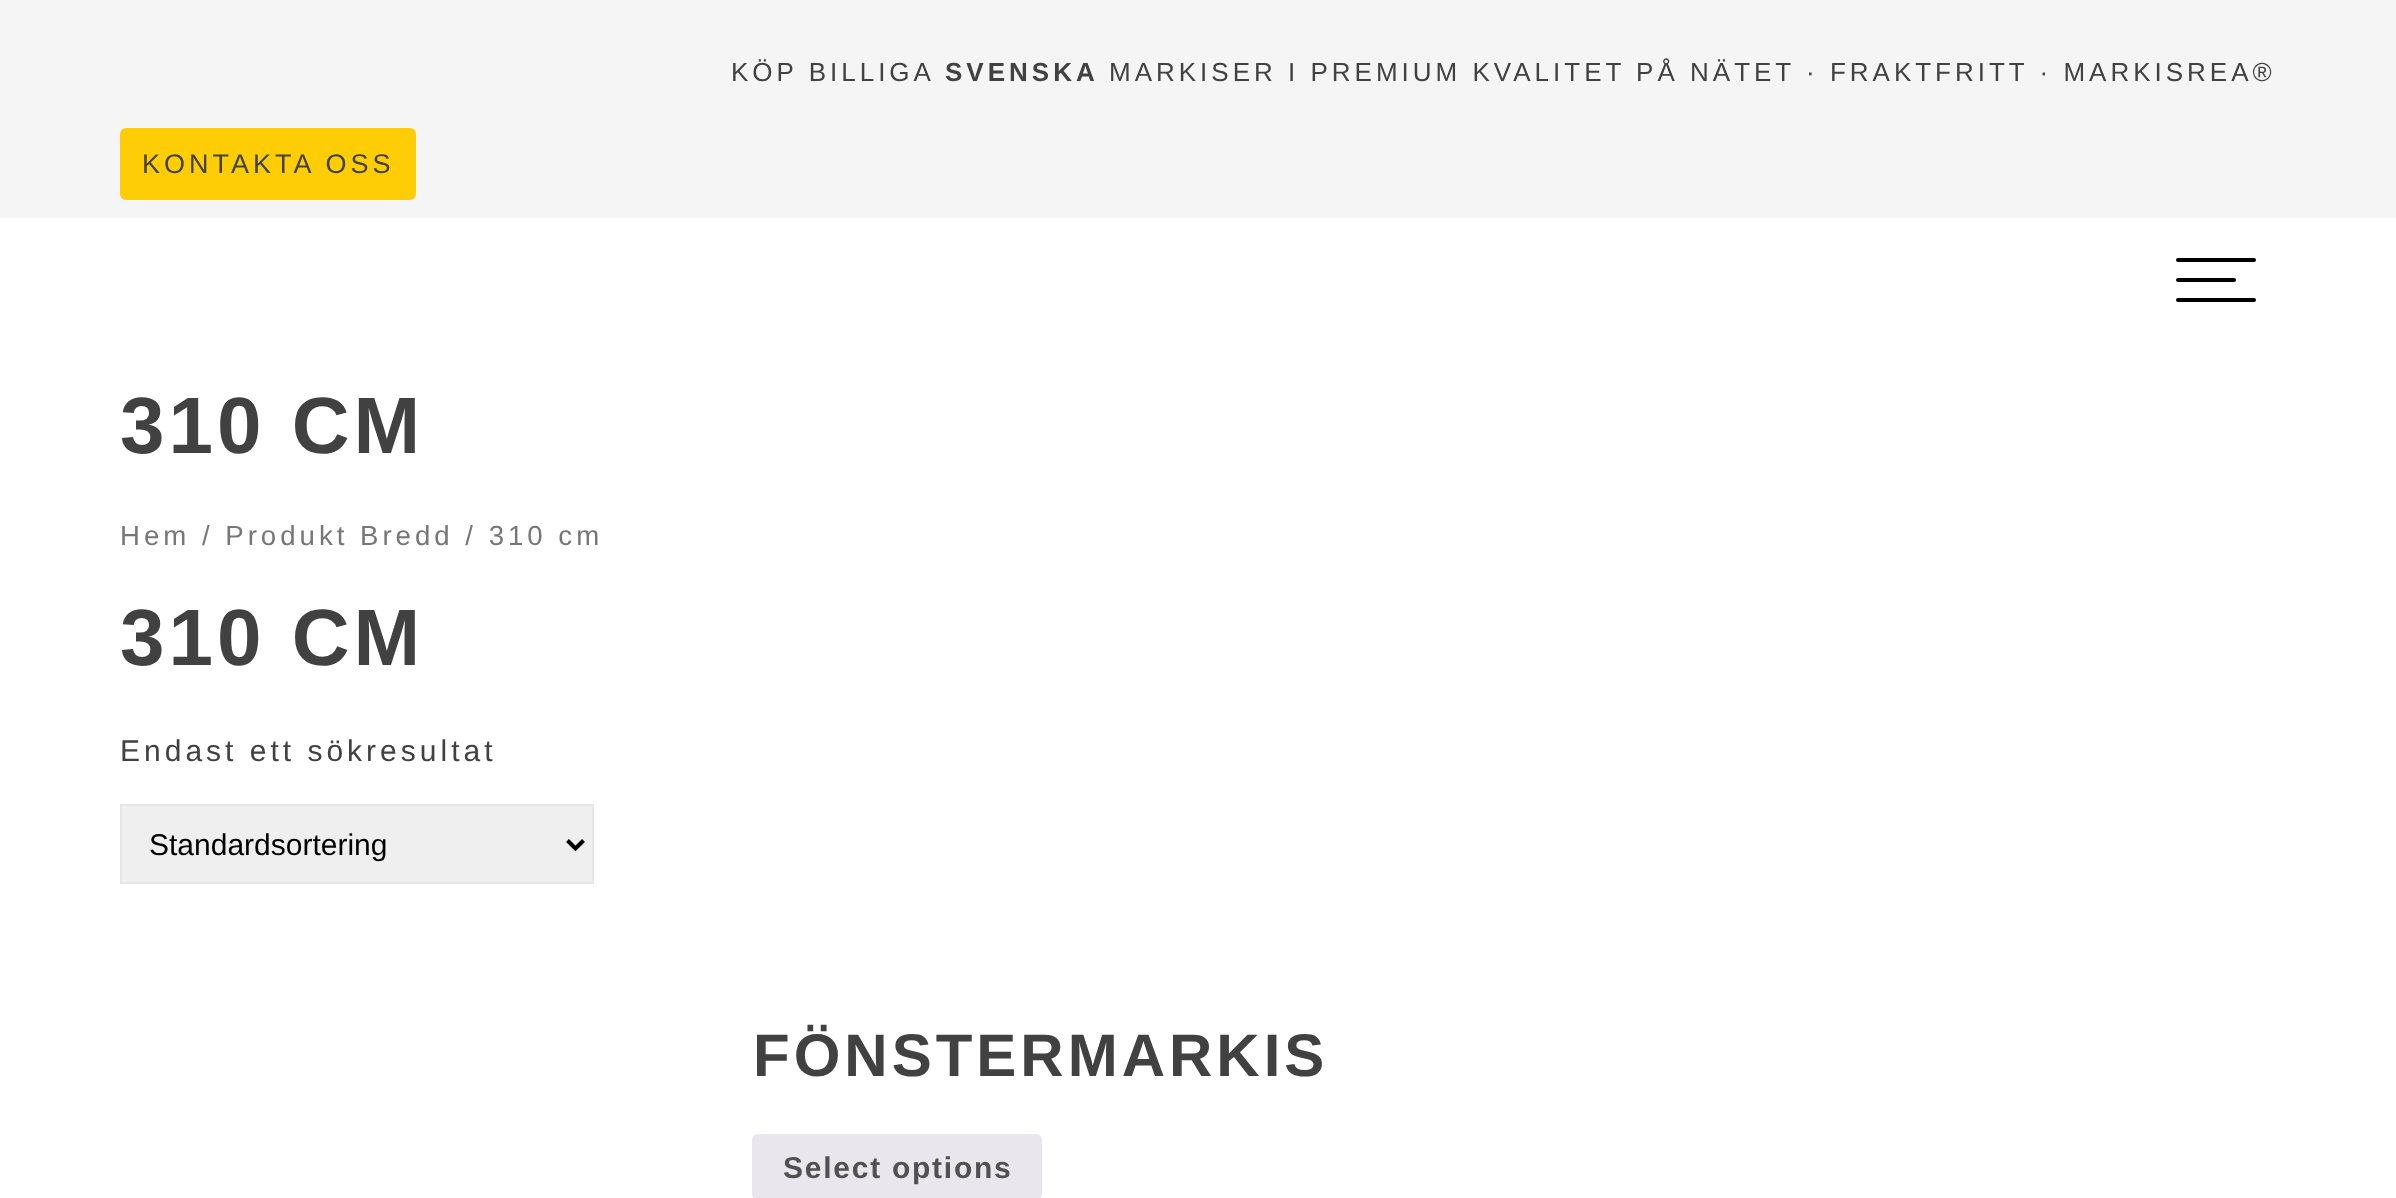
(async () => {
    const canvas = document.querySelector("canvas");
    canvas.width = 2396;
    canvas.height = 1198;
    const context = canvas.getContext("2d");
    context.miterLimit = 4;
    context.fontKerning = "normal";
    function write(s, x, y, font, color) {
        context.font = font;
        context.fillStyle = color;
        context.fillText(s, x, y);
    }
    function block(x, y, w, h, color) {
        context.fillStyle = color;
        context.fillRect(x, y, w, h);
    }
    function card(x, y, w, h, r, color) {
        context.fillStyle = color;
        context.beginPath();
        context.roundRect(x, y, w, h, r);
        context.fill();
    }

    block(0, 0, 2396, 1198, "rgb(255, 255, 255)");
    block(0, 0, 2396, 218, "rgb(245, 245, 245)");
    context.letterSpacing = "4px";
    write("KÖP BILLIGA", 731, 81, "26px Liberation Sans", "rgb(65, 65, 65)");
    write("SVENSKA", 945, 81, "bold 26px Liberation Sans", "rgb(65, 65, 65)");
    write("MARKISER I PREMIUM KVALITET PÅ NÄTET · FRAKTFRITT · MARKISREA®", 1109, 81, "26px Liberation Sans", "rgb(65, 65, 65)");
    card(120, 128, 296, 72, 6, "rgb(255, 205, 5)");
    write("KONTAKTA OSS", 142, 173, "27px Liberation Sans", "rgb(65, 65, 65)");
    card(2176, 278, 60, 4, 2, "rgb(0, 0, 0)");
    card(2176, 258, 80, 4, 2, "rgb(0, 0, 0)");
    card(2176, 298, 80, 4, 2, "rgb(0, 0, 0)");
    write("310 CM", 120, 453, "bold 80px Liberation Sans", "rgb(65, 65, 65)");
    write("Hem / Produkt Bredd / 310 cm", 120, 545, "27.6px Liberation Sans", "rgb(118, 118, 118)");
    write("310 CM", 120, 665, "bold 80px Liberation Sans", "rgb(65, 65, 65)");
    write("Endast ett sökresultat", 120, 761, "30px Liberation Sans", "rgb(65, 65, 65)");
    context.fillStyle = "rgb(239, 239, 239)";
    context.beginPath();
    context.rect(121, 805, 472, 78);
    context.fill();
    context.strokeStyle = "rgb(231, 230, 228)";
    context.lineWidth = 2;
    context.stroke();
    context.beginPath();
    context.moveTo(567.5, 840.5);
    context.lineTo(575.5, 848.5);
    context.lineTo(583.5, 840.5);
    context.strokeStyle = "rgb(0, 0, 0)";
    context.lineWidth = 4;
    context.stroke();
    context.letterSpacing = "0px";
    write("Standardsortering", 149, 855, "30px Liberation Sans", "rgb(0, 0, 0)");
    context.letterSpacing = "4px";
    write("FÖNSTERMARKIS", 753, 1076, "bold 60px Liberation Sans", "rgb(65, 65, 65)");
    card(752, 1134, 290, 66, 6, "rgb(233, 230, 237)");
    context.letterSpacing = "1.75px";
    write("Select options", 783, 1178, "bold 30px Liberation Sans", "rgb(81, 81, 81)");
})();
